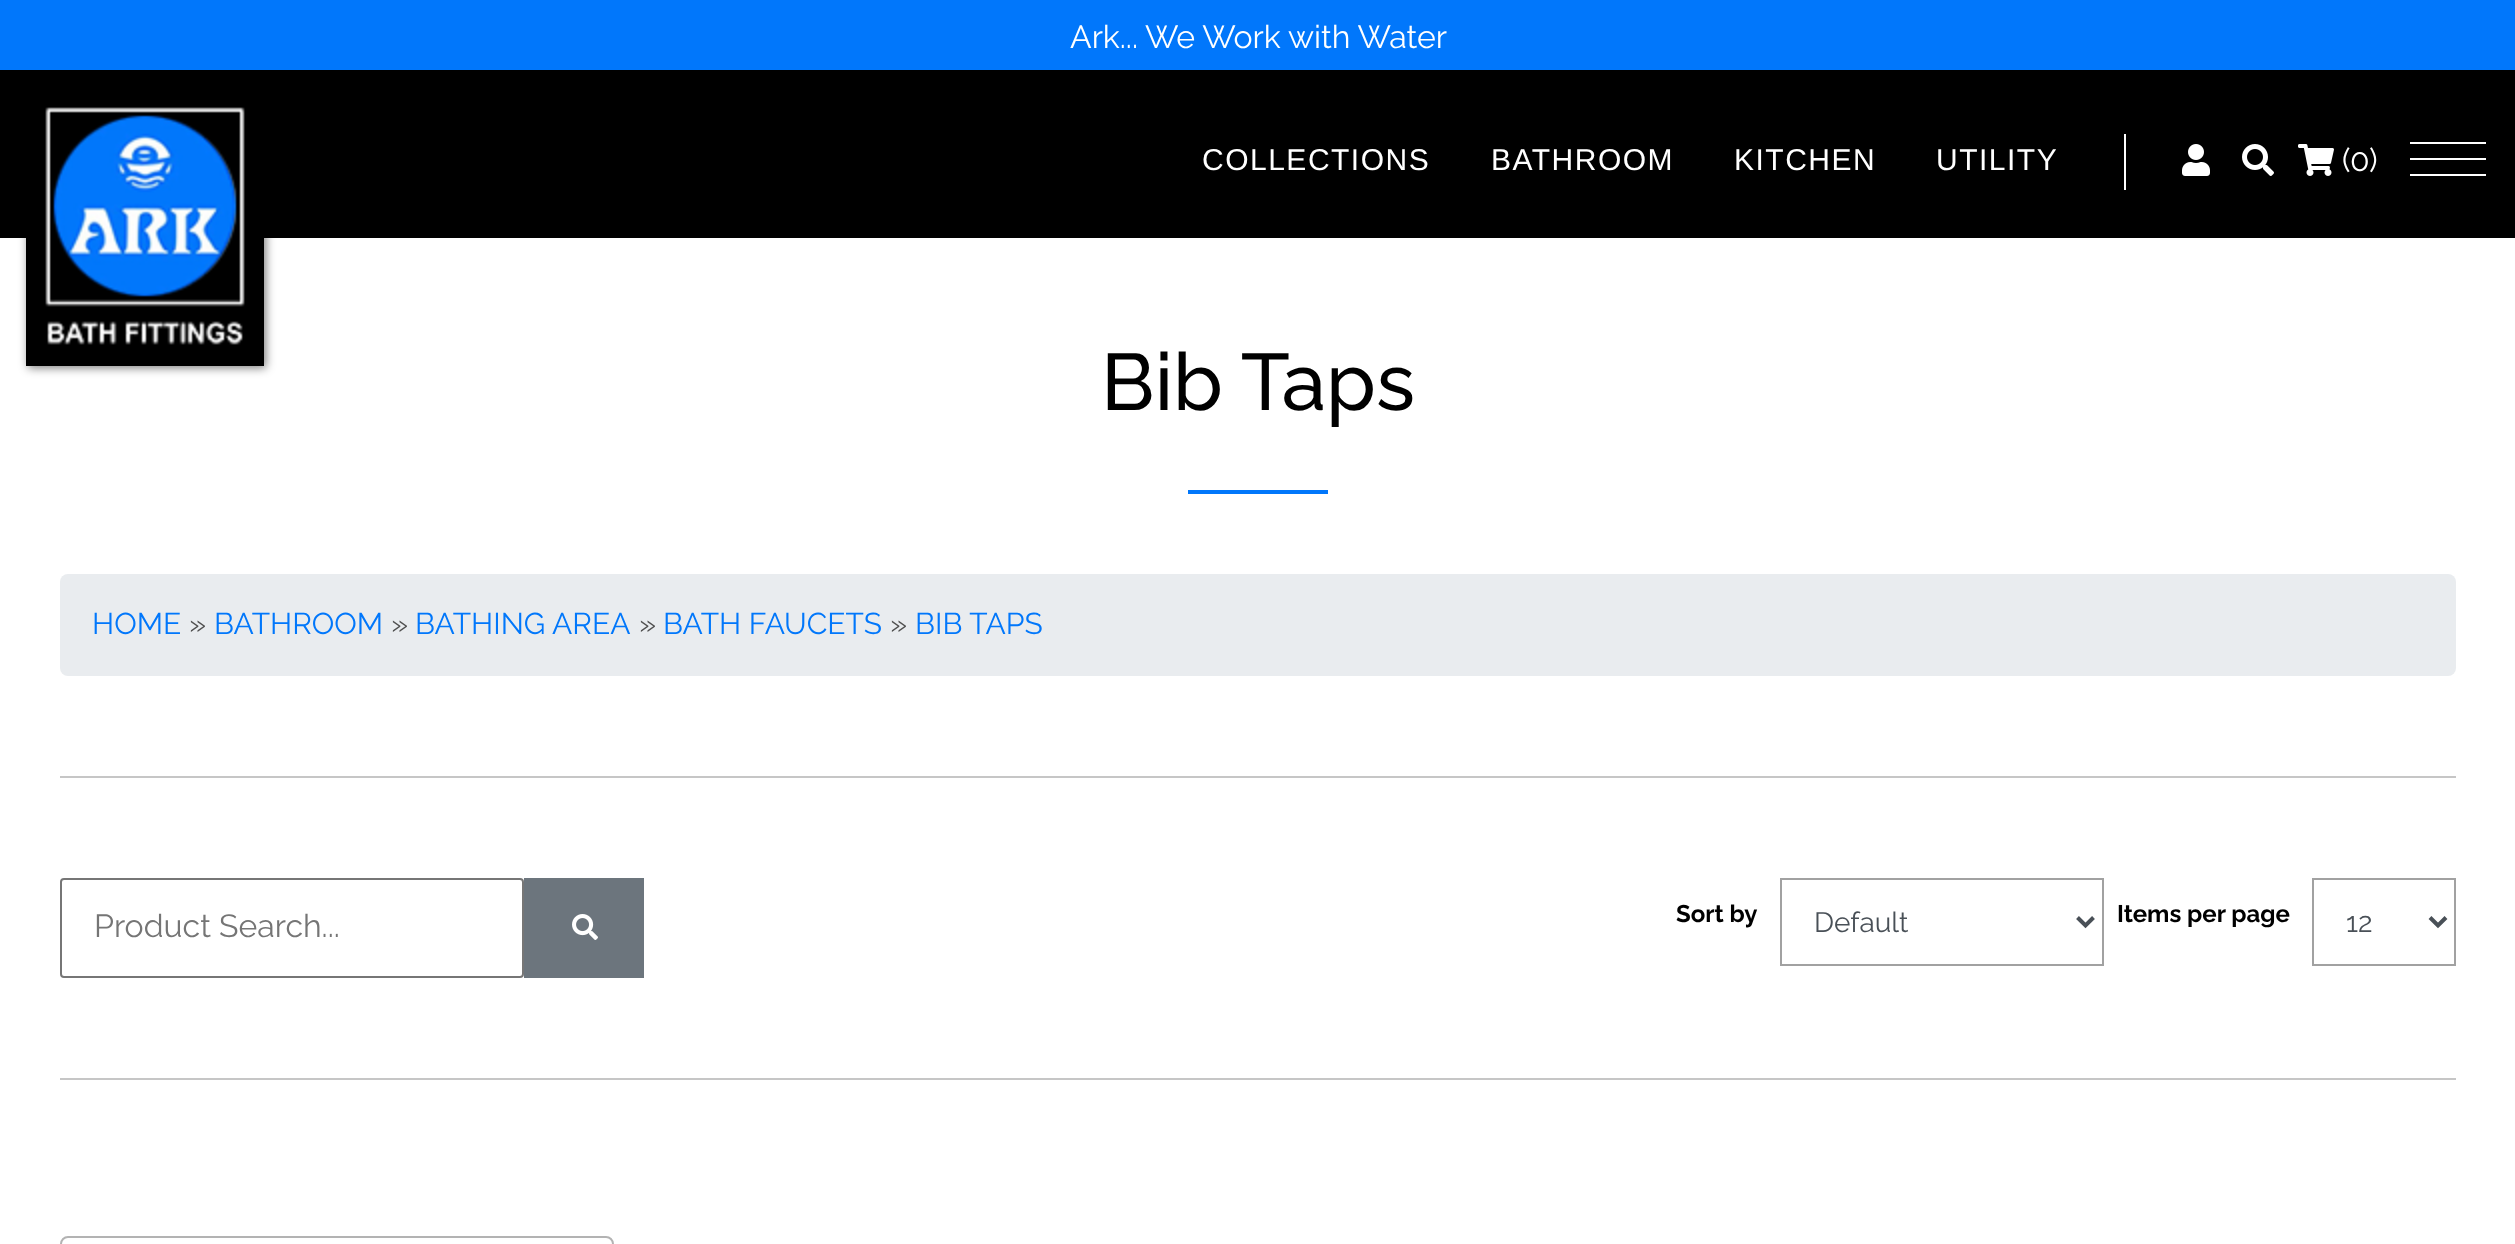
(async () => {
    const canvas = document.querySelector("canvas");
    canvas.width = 2515;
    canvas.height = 1244;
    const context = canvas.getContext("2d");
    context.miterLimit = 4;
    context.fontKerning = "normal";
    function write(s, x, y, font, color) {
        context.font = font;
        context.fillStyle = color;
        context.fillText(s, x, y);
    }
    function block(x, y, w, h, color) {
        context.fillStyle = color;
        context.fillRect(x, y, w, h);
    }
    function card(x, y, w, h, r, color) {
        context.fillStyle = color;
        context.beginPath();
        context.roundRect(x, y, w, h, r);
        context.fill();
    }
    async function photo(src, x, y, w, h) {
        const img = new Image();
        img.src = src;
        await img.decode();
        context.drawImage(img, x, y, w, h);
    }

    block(0, 0, 2515, 1244, "rgb(255, 255, 255)");
    block(0, 0, 2515, 70, "rgb(1, 119, 251)");
    write("Ark... We Work with Water", 1070, 48, "32px Raleway", "rgb(255, 255, 255)");
    block(0, 70, 2515, 168, "rgb(0, 0, 0)");
    context.save();
    context.beginPath();
    context.moveTo(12, 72);
    context.lineTo(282, 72);
    context.lineTo(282, 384);
    context.lineTo(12, 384);
    context.closePath();
    context.moveTo(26, 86);
    context.lineTo(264, 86);
    context.lineTo(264, 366);
    context.lineTo(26, 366);
    context.closePath();
    context.clip("evenodd");
    context.fillStyle = "rgba(0, 0, 0, 0.5)";
    context.filter = "blur(5px)";
    context.beginPath();
    context.rect(28, 88, 238, 280);
    context.fill();
    context.filter = "none";
    context.restore();
    await photo("media/1.png", 26, 107, 238, 259);
    context.letterSpacing = "1.5px";
    write("COLLECTIONS", 1202, 170, "30px Liberation Sans", "rgb(255, 255, 255)");
    write("BATHROOM", 1491, 170, "30px Liberation Sans", "rgb(255, 255, 255)");
    write("KITCHEN", 1734, 170, "30px Liberation Sans", "rgb(255, 255, 255)");
    write("UTILITY", 1936, 170, "30px Liberation Sans", "rgb(255, 255, 255)");
    block(2124, 134, 2, 56, "rgb(255, 255, 255)");
    await photo("media/2.png", 2182, 144, 28, 32);
    await photo("media/3.png", 2242, 144, 32, 32);
    await photo("media/4.png", 2298, 144, 36, 32);
    context.letterSpacing = "0px";
    write("(0)", 2342, 171, "32px Raleway", "rgb(255, 255, 255)");
    block(2410, 158, 76, 2, "rgb(255, 255, 255)");
    block(2410, 142, 76, 2, "rgb(255, 255, 255)");
    block(2410, 174, 76, 2, "rgb(255, 255, 255)");
    write("Bib Taps", 1101, 410, "500 80px Raleway", "rgb(0, 0, 0)");
    block(1188, 490, 140, 4, "rgb(1, 119, 251)");
    card(60, 574, 2396, 102, 8, "rgb(233, 236, 239)");
    write("HOME", 92, 634, "30px Raleway", "rgb(1, 119, 251)");
    write("»", 189, 634, "30px Raleway", "rgb(80, 80, 80)");
    write("BATHROOM", 214, 634, "30px Raleway", "rgb(1, 119, 251)");
    write("»", 391, 634, "30px Raleway", "rgb(80, 80, 80)");
    write("BATHING AREA", 415, 634, "30px Raleway", "rgb(1, 119, 251)");
    write("»", 639, 634, "30px Raleway", "rgb(80, 80, 80)");
    write("BATH FAUCETS", 663, 634, "30px Raleway", "rgb(1, 119, 251)");
    write("»", 890, 634, "30px Raleway", "rgb(80, 80, 80)");
    write("BIB TAPS", 915, 634, "30px Raleway", "rgb(1, 119, 251)");
    block(60, 776, 2396, 2, "rgb(198, 198, 198)");
    context.beginPath();
    context.roundRect(61, 879, 462, 98, 3);
    context.strokeStyle = "rgb(118, 118, 118)";
    context.lineWidth = 2;
    context.stroke();
    write("Product Search...", 94, 937, "32px Raleway", "rgb(117, 117, 117)");
    block(524, 878, 120, 100, "rgb(108, 117, 125)");
    await photo("media/5.png", 572, 914, 26, 26);
    write("Sort by", 1676, 922, "bold 24px Raleway", "rgb(0, 0, 0)");
    context.strokeStyle = "rgb(161, 161, 161)";
    context.strokeRect(1781, 879, 322, 86);
    context.beginPath();
    context.moveTo(2077.5, 917.5);
    context.lineTo(2085.5, 925.5);
    context.lineTo(2093.5, 917.5);
    context.strokeStyle = "rgb(73, 80, 87)";
    context.lineWidth = 4;
    context.stroke();
    write("Default", 1814, 932, "28px Raleway", "rgb(73, 80, 87)");
    write("Items per page", 2117, 922, "bold 24px Raleway", "rgb(0, 0, 0)");
    context.strokeStyle = "rgb(161, 161, 161)";
    context.lineWidth = 2;
    context.strokeRect(2313, 879, 142, 86);
    context.beginPath();
    context.moveTo(2430, 917.5);
    context.lineTo(2438, 925.5);
    context.lineTo(2446, 917.5);
    context.strokeStyle = "rgb(73, 80, 87)";
    context.lineWidth = 4;
    context.stroke();
    write("12", 2346, 932, "28px Raleway", "rgb(73, 80, 87)");
    block(60, 1078, 2396, 2, "rgb(198, 198, 198)");
    context.beginPath();
    context.roundRect(61, 1237, 552, 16, 7);
    context.strokeStyle = "rgb(179, 179, 179)";
    context.lineWidth = 2;
    context.stroke();
})();
